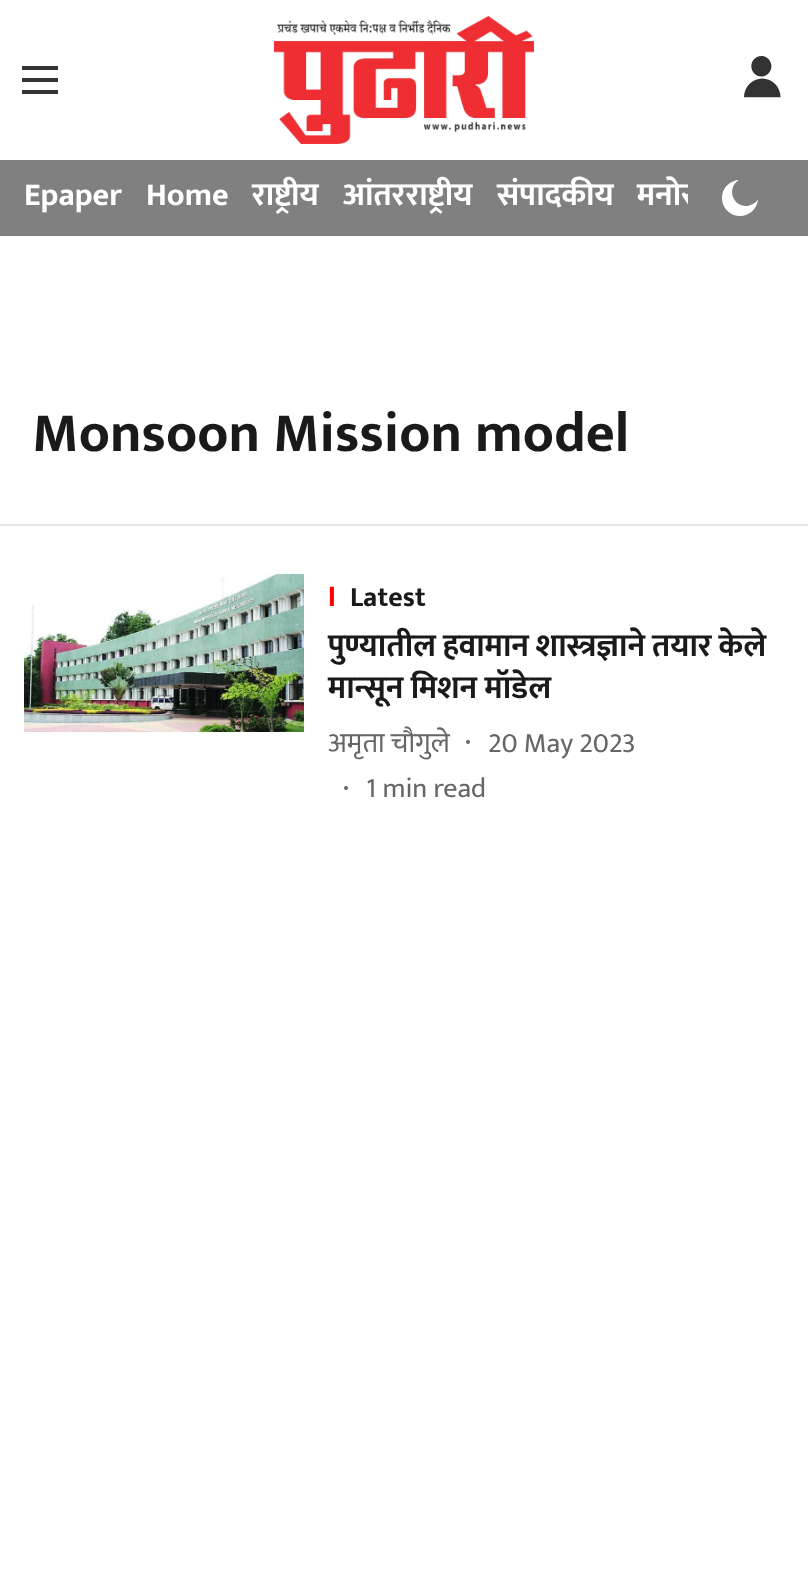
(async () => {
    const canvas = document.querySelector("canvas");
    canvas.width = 808;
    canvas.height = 1572;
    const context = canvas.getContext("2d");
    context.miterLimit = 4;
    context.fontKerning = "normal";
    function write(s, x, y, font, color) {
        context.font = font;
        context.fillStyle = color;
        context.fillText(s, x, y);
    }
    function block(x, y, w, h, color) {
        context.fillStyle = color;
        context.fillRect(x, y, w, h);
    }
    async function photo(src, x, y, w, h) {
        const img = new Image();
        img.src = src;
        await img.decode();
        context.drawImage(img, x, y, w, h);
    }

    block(0, 0, 808, 1572, "rgb(255, 255, 255)");
    await photo("media/1.png", 22, 66, 36, 28);
    await photo("media/2.png", 274, 16, 260, 128);
    await photo("media/3.png", 744, 56, 37, 42);
    block(0, 160, 808, 76, "rgb(128, 128, 128)");
    write("Epaper", 24, 205, "bold 32px Mukta", "rgb(255, 255, 255)");
    write("Home", 146, 205, "bold 32px Mukta", "rgb(255, 255, 255)");
    write("राष्ट्रीय", 252, 205, "bold 32px Mukta", "rgb(255, 255, 255)");
    write("आंतरराष्ट्रीय", 343, 205, "bold 32px Mukta", "rgb(255, 255, 255)");
    write("संपादकीय", 497, 205, "bold 32px Mukta", "rgb(255, 255, 255)");
    context.save();
    context.beginPath();
    context.rect(0, 160, 688, 76);
    context.clip();
    write("मनोर", 637, 205, "bold 32px Mukta", "rgb(255, 255, 255)");
    context.restore();
    await photo("media/4.png", 722, 180, 36, 36);
    block(0, 524, 808, 2, "rgb(230, 230, 230)");
    write("Monsoon Mission model", 32, 451, "bold 56px Mukta", "rgb(26, 26, 26)");
    await photo("media/5.png", 24, 574, 280, 158);
    write("I", 328, 606, "bold 28px Liberation Sans", "rgb(255, 0, 0)");
    write("Latest", 350, 606, "bold 28px Mukta", "rgb(26, 26, 26)");
    context.wordSpacing = "-0.5px";
    write("पुण्यातील हवामान शास्त्रज्ञाने तयार केले", 328, 656, "bold 32px Mukta", "rgb(26, 26, 26)");
    context.wordSpacing = "0px";
    write("मान्सून मिशन मॉडेल", 328, 698, "bold 32px Mukta", "rgb(26, 26, 26)");
    write("अमृता चौगुले", 328, 752, "28px Mukta", "rgb(102, 102, 102)");
    context.beginPath();
    context.arc(468, 742, 2, 0, Math.PI * 2);
    context.fill();
    write("20 May 2023", 488, 752, "28px Mukta", "rgb(102, 102, 102)");
    context.beginPath();
    context.arc(346, 788, 2, 0, Math.PI * 2);
    context.fill();
    write("1 min read", 366, 797, "28px Mukta", "rgb(102, 102, 102)");
})();
